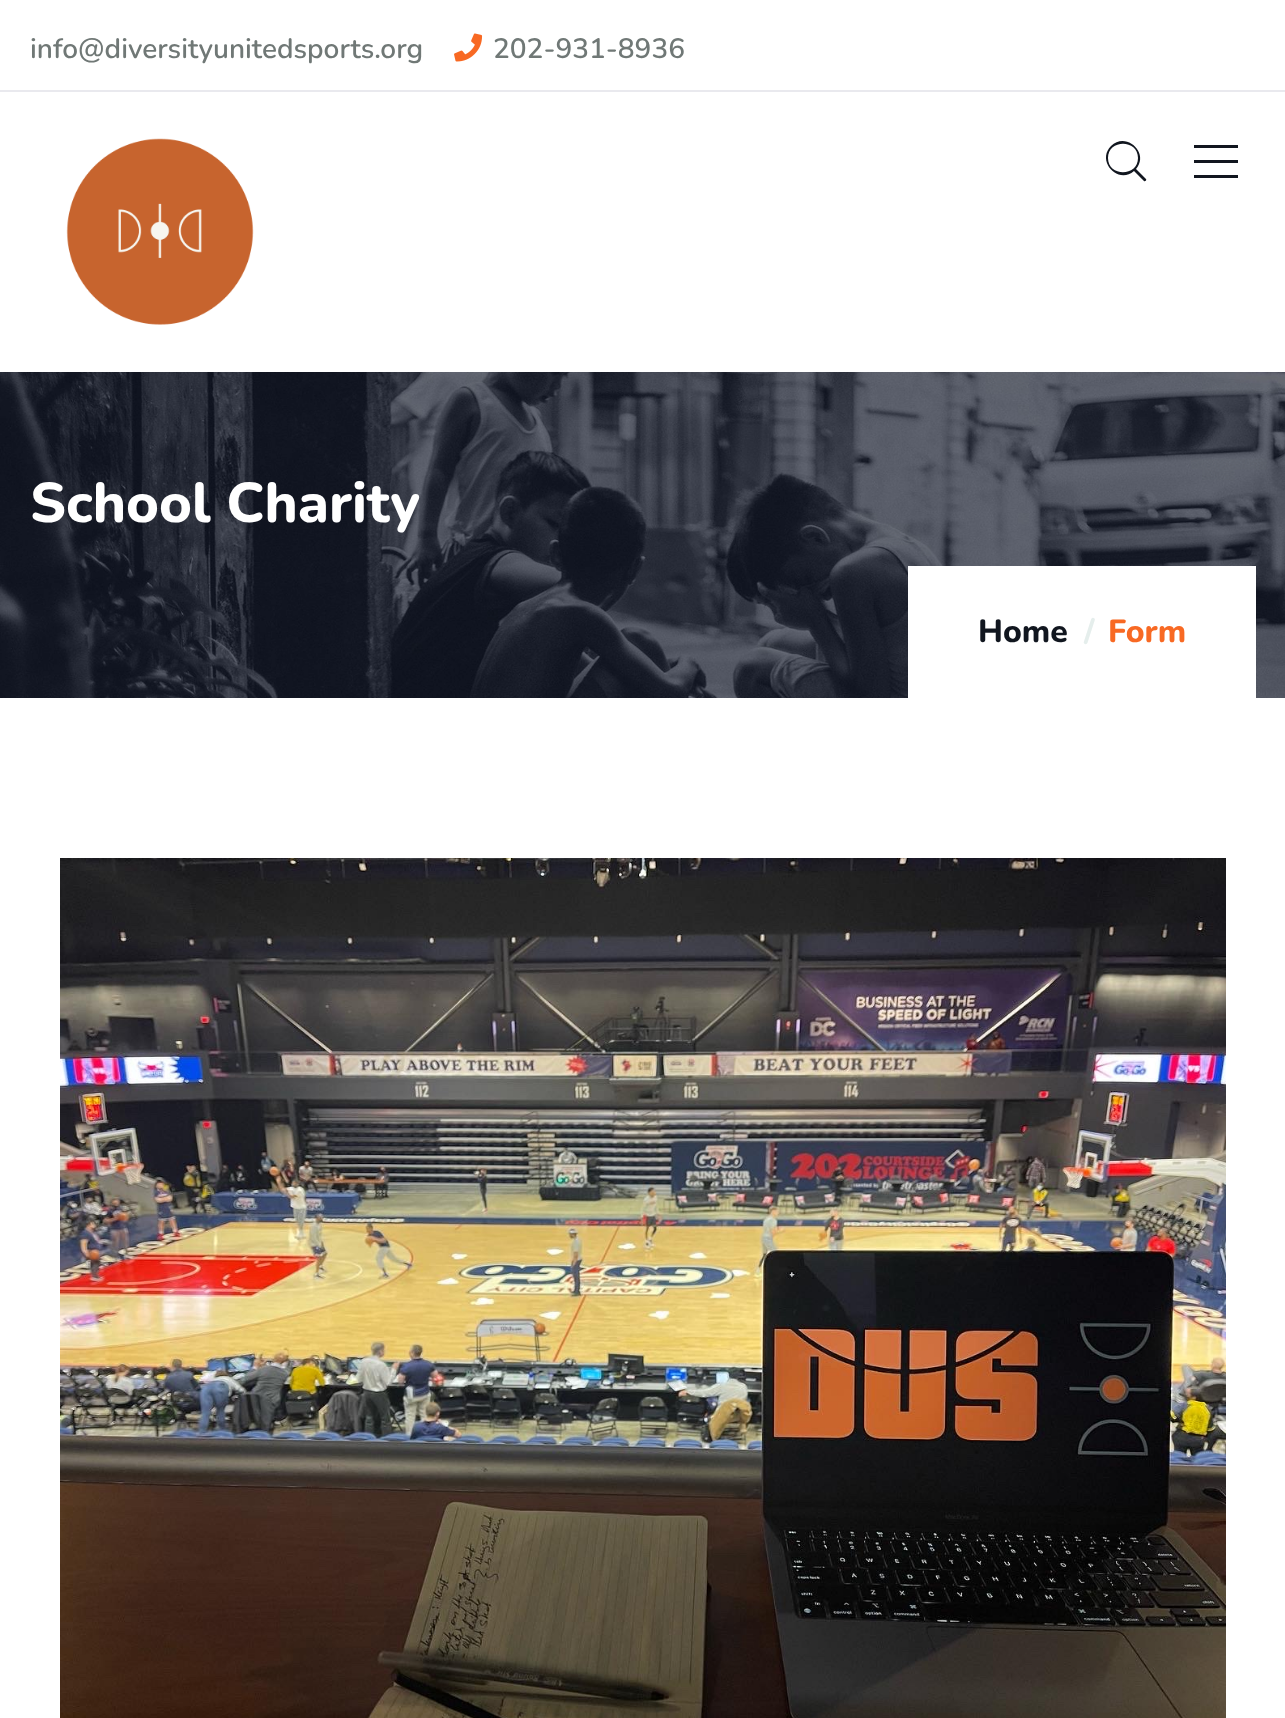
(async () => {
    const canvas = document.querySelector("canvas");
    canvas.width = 1285;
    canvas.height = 1718;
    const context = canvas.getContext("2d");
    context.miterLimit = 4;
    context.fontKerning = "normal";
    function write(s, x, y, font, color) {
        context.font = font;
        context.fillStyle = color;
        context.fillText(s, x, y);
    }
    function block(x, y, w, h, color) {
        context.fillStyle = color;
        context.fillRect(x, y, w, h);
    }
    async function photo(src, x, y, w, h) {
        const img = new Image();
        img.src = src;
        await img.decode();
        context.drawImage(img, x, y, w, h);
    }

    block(0, 0, 1285, 1718, "rgb(255, 255, 255)");
    block(0, 90, 1285, 2, "rgb(233, 233, 238)");
    write("info@diversityunitedsports.org", 30, 58, "600 28px Nunito", "rgb(112, 120, 118)");
    await photo("media/1.png", 454, 33, 29, 29);
    write("202-931-8936", 493, 58, "600 28px Nunito", "rgb(112, 120, 118)");
    await photo("media/2.png", 66, 138, 188, 187);
    context.fillStyle = "rgb(17, 22, 31)";
    context.beginPath();
    context.moveTo(1146, 179);
    context.bezierCurveTo(1147, 180, 1145, 182, 1144, 181);
    context.lineTo(1134, 171);
    context.bezierCurveTo(1118, 185, 1096, 161, 1111, 146);
    context.bezierCurveTo(1126, 131, 1150, 153, 1136, 169);
    context.closePath();
    context.moveTo(1108, 158);
    context.bezierCurveTo(1108, 177, 1138, 177, 1138, 158);
    context.bezierCurveTo(1138, 139, 1108, 139, 1108, 158);
    context.closePath();
    context.fill();
    context.beginPath();
    context.moveTo(1194, 145);
    context.lineTo(1194, 148);
    context.lineTo(1238, 148);
    context.lineTo(1238, 145);
    context.closePath();
    context.moveTo(1194, 160);
    context.lineTo(1194, 163);
    context.lineTo(1238, 163);
    context.lineTo(1238, 160);
    context.closePath();
    context.moveTo(1194, 175);
    context.lineTo(1194, 178);
    context.lineTo(1238, 178);
    context.lineTo(1238, 175);
    context.closePath();
    context.fill();
    await photo("media/3.png", 0, 372, 1285, 326);
    write("School Charity", 30, 522, "800 56px Nunito", "rgb(255, 255, 255)");
    block(908, 566, 348, 132, "rgb(255, 255, 255)");
    write("Home", 978, 642, "800 32px Nunito", "rgb(17, 22, 31)");
    write("/", 1084, 642, "800 32px Nunito", "rgb(229, 238, 236)");
    write("Form", 1108, 642, "800 32px Nunito", "rgb(248, 105, 35)");
    await photo("media/4.png", 60, 858, 1166, 860);
})();
